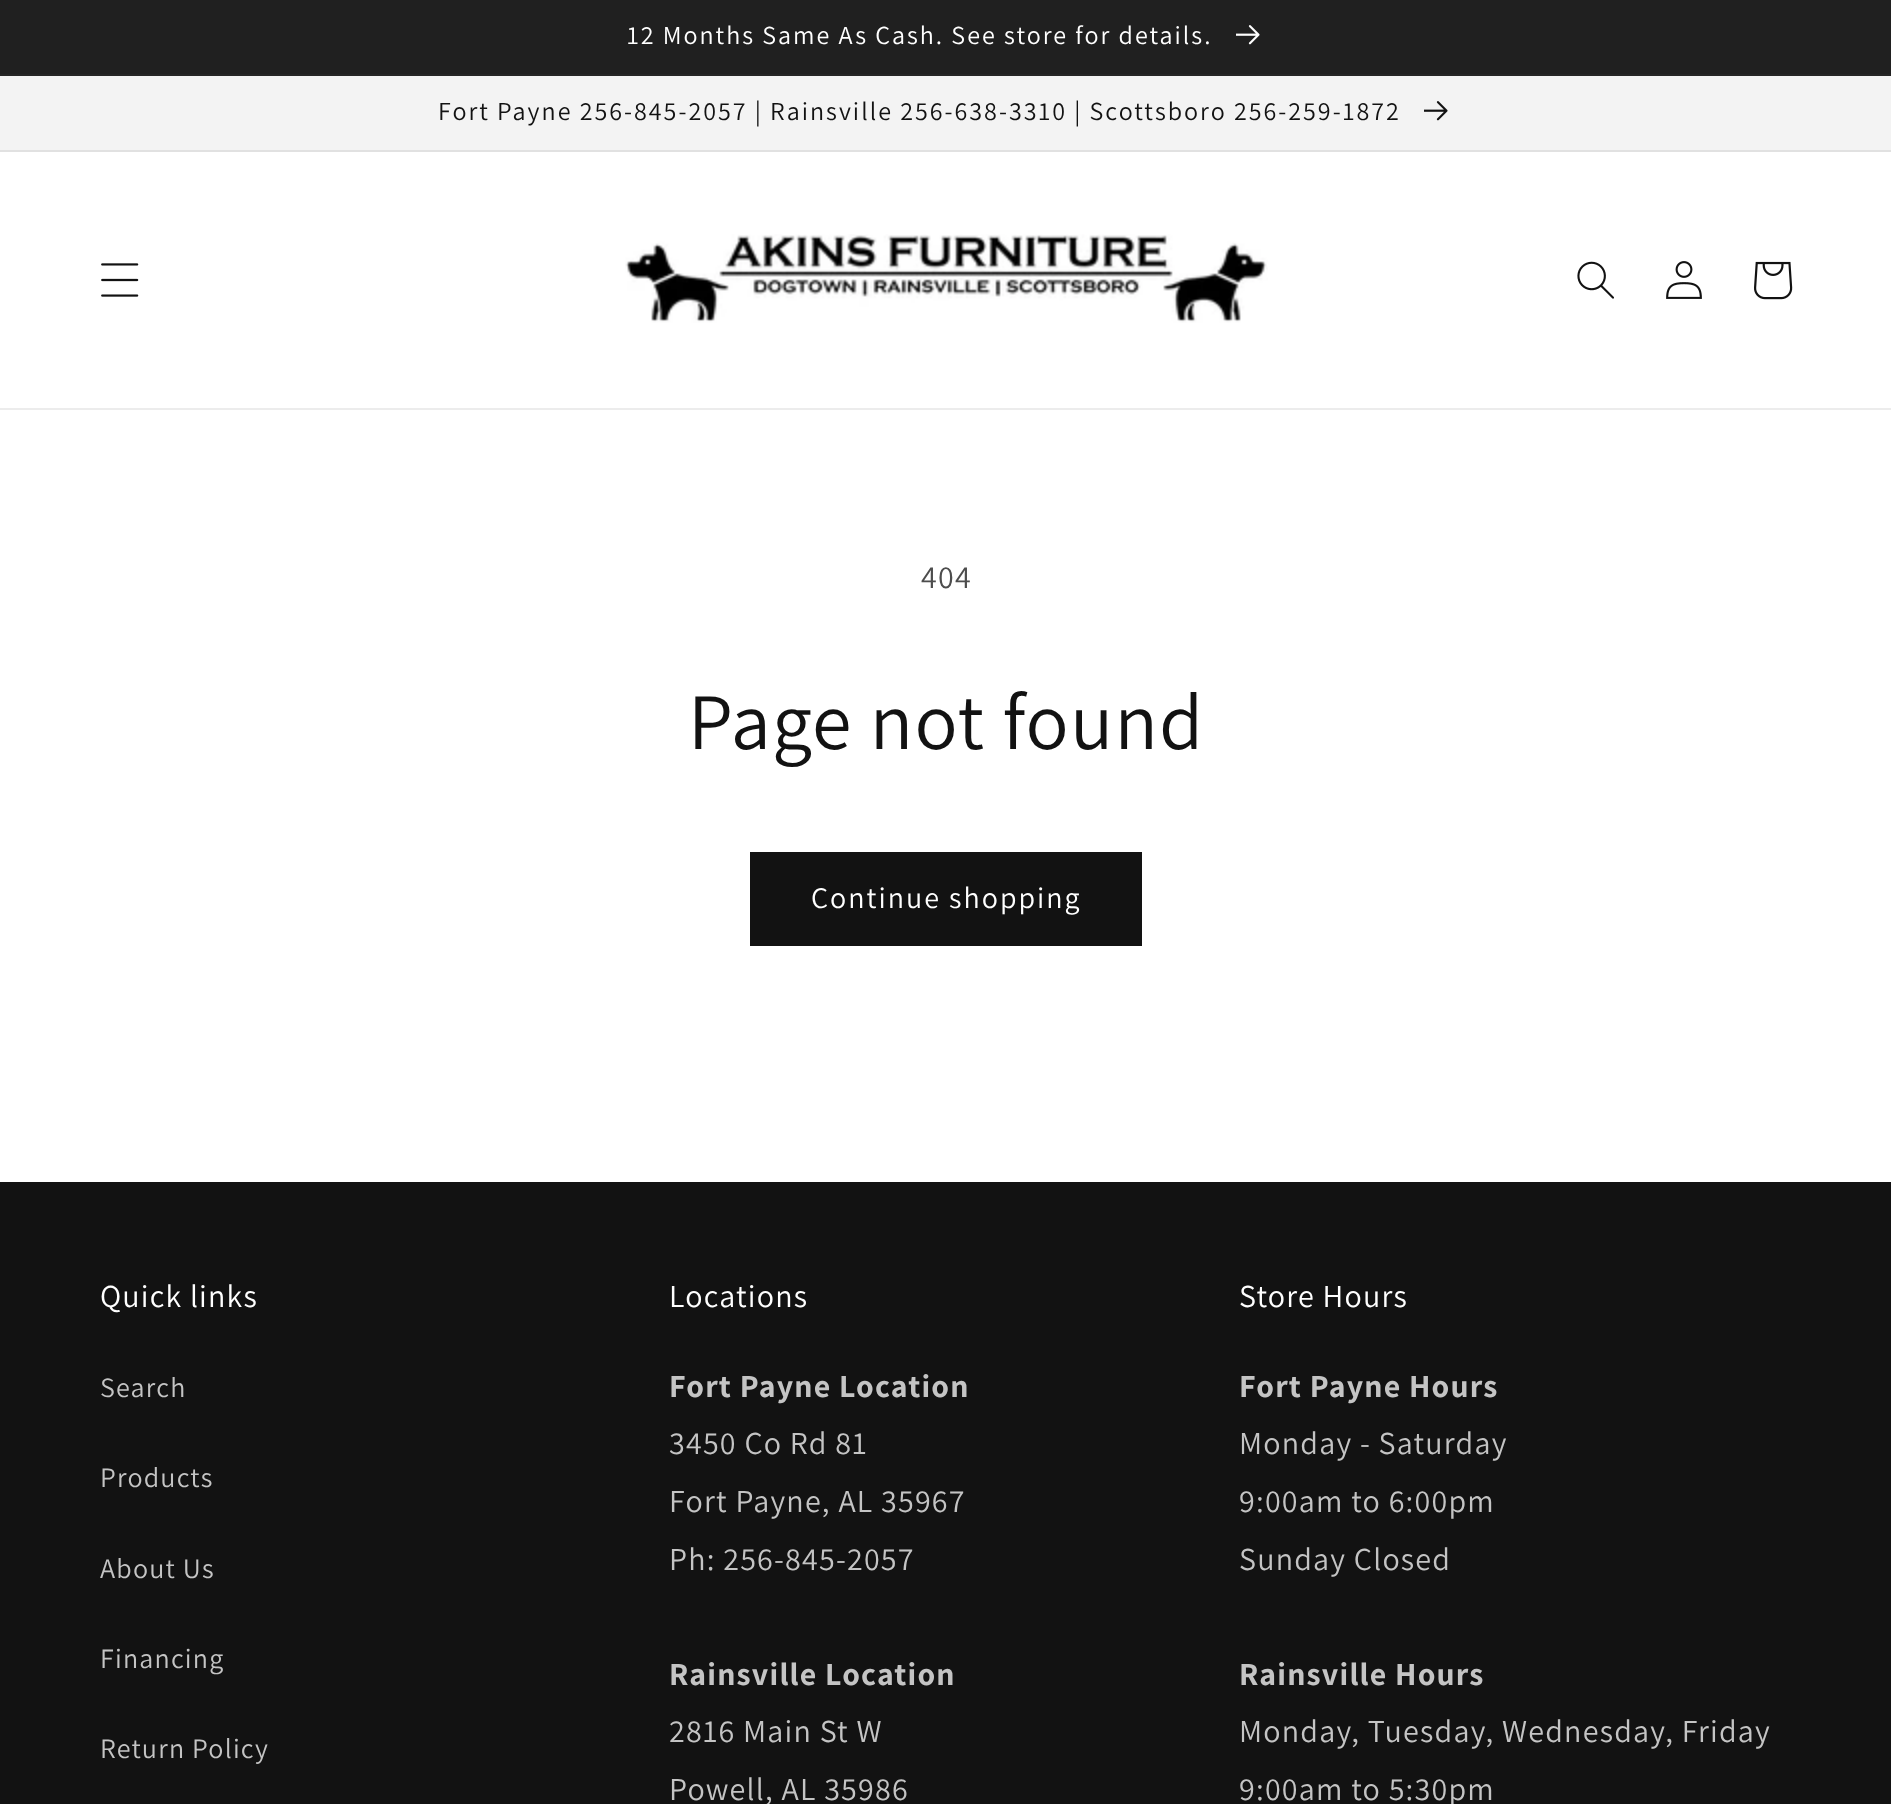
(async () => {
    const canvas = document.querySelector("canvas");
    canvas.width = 1891;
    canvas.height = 1804;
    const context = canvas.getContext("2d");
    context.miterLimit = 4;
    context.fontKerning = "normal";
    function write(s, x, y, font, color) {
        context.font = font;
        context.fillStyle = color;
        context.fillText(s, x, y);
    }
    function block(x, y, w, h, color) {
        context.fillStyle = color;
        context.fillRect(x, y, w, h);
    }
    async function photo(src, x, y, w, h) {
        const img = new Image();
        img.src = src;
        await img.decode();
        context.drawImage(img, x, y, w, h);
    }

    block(0, 0, 1891, 1804, "rgb(255, 255, 255)");
    block(0, 74, 1891, 2, "rgb(37, 37, 37)");
    block(0, 0, 1891, 74, "rgb(32, 32, 32)");
    context.letterSpacing = "2px";
    write("12 Months Same As Cash. See store for details.", 627, 44, "26px Assistant", "rgb(255, 255, 255)");
    await photo("media/1.png", 1236, 25, 24, 20);
    block(0, 76, 1891, 74, "rgb(243, 243, 243)");
    block(0, 150, 1891, 2, "rgb(225, 225, 225)");
    write("Fort Payne 256-845-2057 | Rainsville 256-638-3310 | Scottsboro 256-259-1872", 438, 120, "26px Assistant", "rgb(18, 18, 18)");
    await photo("media/2.png", 1424, 101, 24, 20);
    block(0, 408, 1891, 2, "rgb(236, 236, 236)");
    await photo("media/3.png", 101, 263, 38, 34);
    await photo("media/4.png", 625, 234, 643, 89);
    await photo("media/5.png", 1577, 261, 37, 38);
    await photo("media/6.png", 1666, 261, 36, 38);
    await photo("media/7.png", 1754, 261, 39, 39);
    context.letterSpacing = "1.2px";
    write("404", 921, 588, "32px Assistant", "rgb(77, 77, 77)");
    write("Page not found", 688, 749, "80px Assistant", "rgb(18, 18, 18)");
    block(750, 852, 392, 94, "rgb(18, 18, 18)");
    context.letterSpacing = "2px";
    write("Continue shopping", 811, 908, "30px Assistant", "rgb(255, 255, 255)");
    block(0, 1182, 1891, 622, "rgb(18, 18, 18)");
    context.letterSpacing = "1.2px";
    write("Quick links", 100, 1307, "32px Assistant", "rgb(255, 255, 255)");
    write("Search", 100, 1397, "28px Assistant", "rgb(196, 196, 196)");
    write("Products", 100, 1487, "28px Assistant", "rgb(196, 196, 196)");
    write("About Us", 100, 1578, "28px Assistant", "rgb(196, 196, 196)");
    write("Financing", 100, 1668, "28px Assistant", "rgb(196, 196, 196)");
    write("Return Policy", 100, 1758, "28px Assistant", "rgb(196, 196, 196)");
    write("Locations", 669, 1307, "32px Assistant", "rgb(255, 255, 255)");
    write("Fort Payne Location", 669, 1397, "bold 32px Assistant", "rgb(196, 196, 196)");
    write("3450 Co Rd 81", 669, 1454, "32px Assistant", "rgb(196, 196, 196)");
    write("Fort Payne, AL 35967", 669, 1512, "32px Assistant", "rgb(196, 196, 196)");
    write("Ph: 256-845-2057", 669, 1570, "32px Assistant", "rgb(196, 196, 196)");
    write("Rainsville Location", 669, 1685, "bold 32px Assistant", "rgb(196, 196, 196)");
    write("2816 Main St W", 669, 1742, "32px Assistant", "rgb(196, 196, 196)");
    write("Powell, AL 35986", 669, 1800, "32px Assistant", "rgb(196, 196, 196)");
    write("Store Hours", 1239, 1307, "32px Assistant", "rgb(255, 255, 255)");
    write("Fort Payne Hours", 1239, 1397, "bold 32px Assistant", "rgb(196, 196, 196)");
    write("Monday - Saturday", 1239, 1454, "32px Assistant", "rgb(196, 196, 196)");
    write("9:00am to 6:00pm", 1239, 1512, "32px Assistant", "rgb(196, 196, 196)");
    write("Sunday Closed", 1239, 1570, "32px Assistant", "rgb(196, 196, 196)");
    write("Rainsville Hours", 1239, 1685, "bold 32px Assistant", "rgb(196, 196, 196)");
    write("Monday, Tuesday, Wednesday, Friday", 1239, 1742, "32px Assistant", "rgb(196, 196, 196)");
    write("9:00am to 5:30pm", 1239, 1800, "32px Assistant", "rgb(196, 196, 196)");
})();
